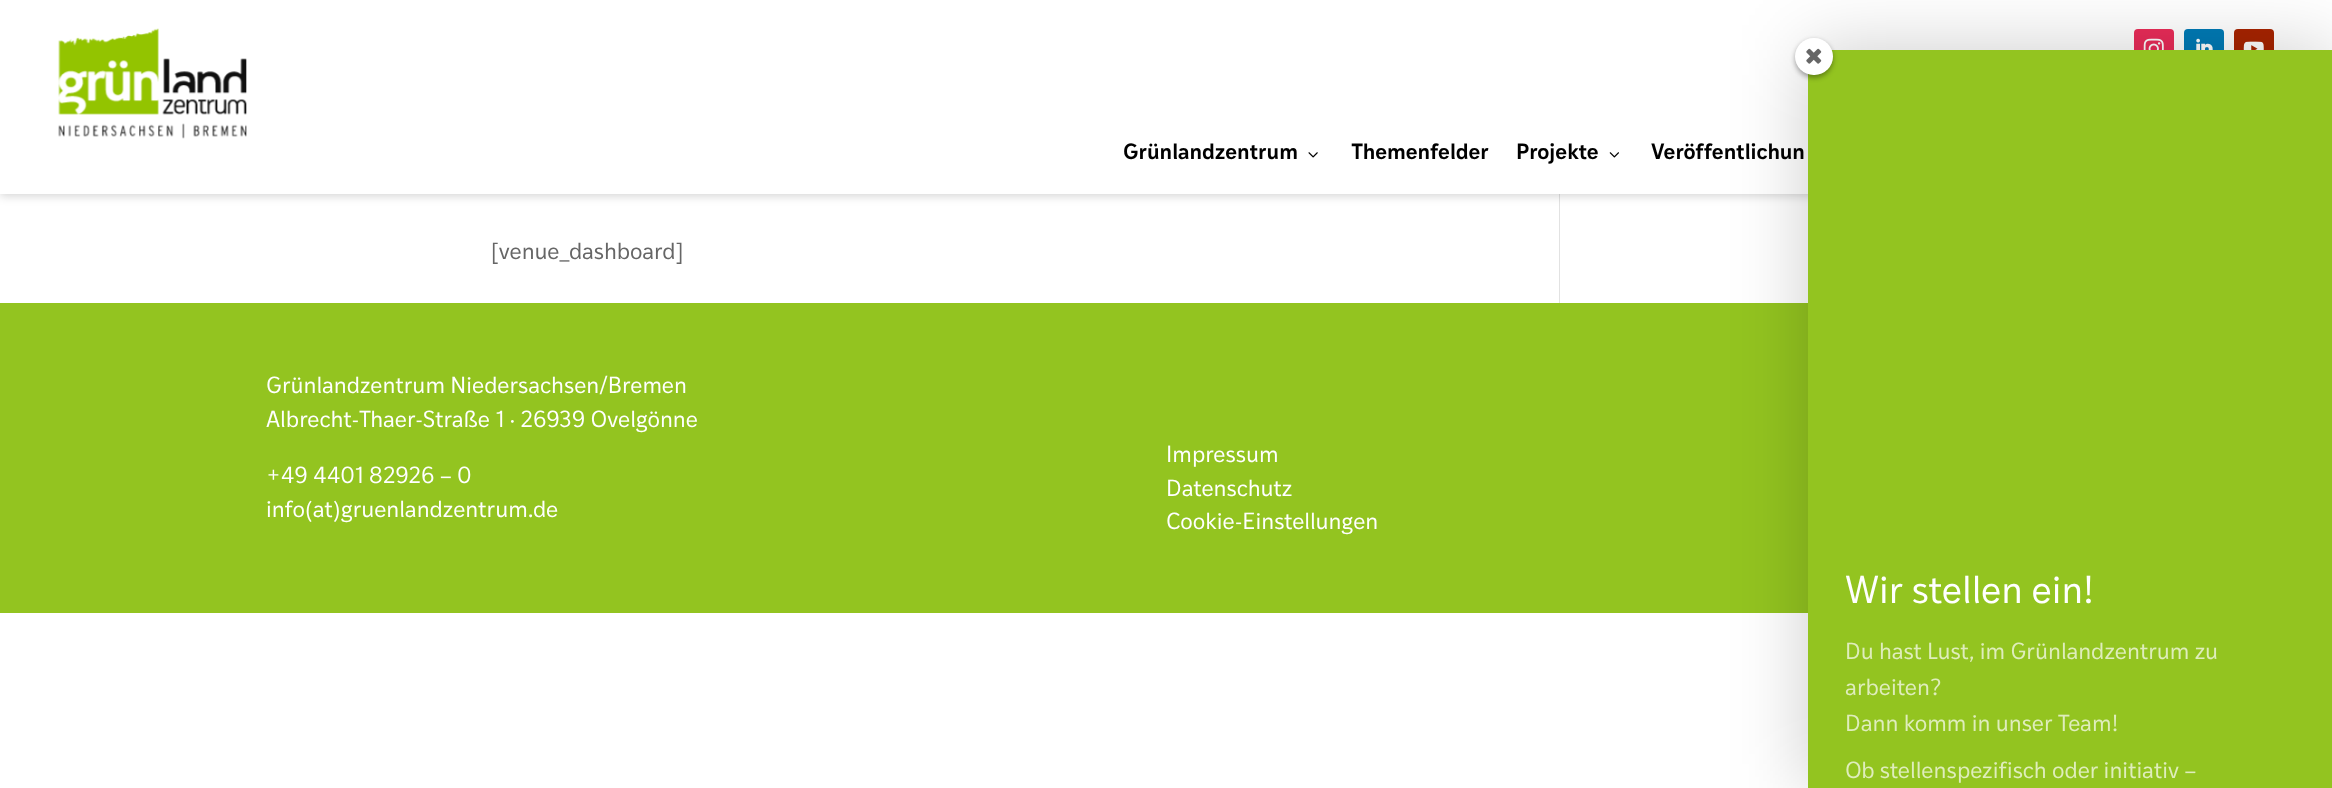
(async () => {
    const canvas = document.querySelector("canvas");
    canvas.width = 2332;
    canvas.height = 788;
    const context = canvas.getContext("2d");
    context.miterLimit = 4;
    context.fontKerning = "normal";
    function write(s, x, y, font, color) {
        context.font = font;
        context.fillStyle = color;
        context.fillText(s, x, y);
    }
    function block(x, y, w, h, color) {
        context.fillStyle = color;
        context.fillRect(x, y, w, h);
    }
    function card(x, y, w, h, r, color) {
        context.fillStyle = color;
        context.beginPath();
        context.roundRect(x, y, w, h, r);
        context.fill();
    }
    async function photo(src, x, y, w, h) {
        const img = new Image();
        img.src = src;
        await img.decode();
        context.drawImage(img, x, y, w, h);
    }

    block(0, 0, 2332, 788, "rgb(255, 255, 255)");
    block(1559, 194, 1, 109, "rgb(226, 226, 226)");
    context.fillStyle = "rgba(0, 0, 0, 0.17)";
    context.filter = "blur(5px)";
    context.beginPath();
    context.rect(0, 3, 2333, 193);
    context.fill();
    context.filter = "none";
    block(0, 0, 2332, 194, "rgb(255, 255, 255)");
    await photo("media/1.png", 58, 28, 189, 111);
    card(2134, 29, 40, 40, 4, "rgb(234, 44, 89)");
    await photo("media/2.png", 2143, 38, 21, 12);
    card(2184, 29, 40, 40, 4, "rgb(0, 123, 182)");
    await photo("media/3.png", 2196, 38, 17, 12);
    card(2234, 29, 40, 40, 4, "rgb(168, 36, 0)");
    await photo("media/4.png", 2243, 41, 21, 9);
    write("Grünlandzentrum", 1123, 159, "600 21.25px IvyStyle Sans", "rgb(0, 0, 0)");
    await photo("media/5.png", 1308, 152, 10, 6);
    write("Themenfelder", 1351, 159, "600 21.25px IvyStyle Sans", "rgb(0, 0, 0)");
    write("Projekte", 1516, 159, "600 21.25px IvyStyle Sans", "rgb(0, 0, 0)");
    await photo("media/6.png", 1609, 152, 10, 6);
    write("Veröffentlichun", 1651, 159, "600 21.25px IvyStyle Sans", "rgb(0, 0, 0)");
    write("[venue_dashboard]", 491, 259, "22.5px IvyStyle Sans", "rgb(102, 102, 102)");
    block(0, 303, 1808, 310, "rgb(147, 196, 32)");
    write("Grünlandzentrum Niedersachsen/Bremen", 266, 393, "22.5px IvyStyle Sans", "rgb(255, 255, 255)");
    write("Albrecht-Thaer-Straße 1 · 26939 Ovelgönne", 266, 427, "22.5px IvyStyle Sans", "rgb(255, 255, 255)");
    write("+49 4401 82926 – 0", 266, 483, "22.5px IvyStyle Sans", "rgb(255, 255, 255)");
    write("info(at)gruenlandzentrum.de", 266, 517, "22.5px IvyStyle Sans", "rgb(255, 255, 255)");
    write("Impressum", 1166, 462, "22.5px IvyStyle Sans", "rgb(255, 255, 255)");
    write("Datenschutz", 1166, 496, "22.5px IvyStyle Sans", "rgb(255, 255, 255)");
    write("Cookie-Einstellungen", 1166, 529, "22.5px IvyStyle Sans", "rgb(255, 255, 255)");
    context.fillStyle = "rgba(0, 0, 0, 0.2)";
    context.filter = "blur(37.5px)";
    context.beginPath();
    context.rect(1808, 50, 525, 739);
    context.fill();
    context.filter = "none";
    block(1808, 50, 524, 738, "rgb(147, 196, 32)");
    context.fillStyle = "rgba(0, 0, 0, 0.34)";
    context.filter = "blur(2.5px)";
    context.beginPath();
    context.roundRect(1795, 40, 38, 38, 19);
    context.fill();
    context.filter = "none";
    card(1795, 38, 38, 37, 18.5, "rgb(255, 255, 255)");
    await photo("media/7.png", 1806, 48, 16, 16);
    write("Wir stellen ein!", 1845, 603, "37.5px IvyStyle Sans", "rgb(255, 255, 255)");
    write("Du hast Lust, im Grünlandzentrum zu", 1845, 659, "22.5px IvyStyle Sans", "rgb(223, 237, 188)");
    write("arbeiten?", 1845, 695, "22.5px IvyStyle Sans", "rgb(223, 237, 188)");
    write("Dann komm in unser Team!", 1845, 731, "22.5px IvyStyle Sans", "rgb(223, 237, 188)");
    write("Ob stellenspezifisch oder initiativ –", 1845, 778, "22.5px IvyStyle Sans", "rgb(223, 237, 188)");
})();
